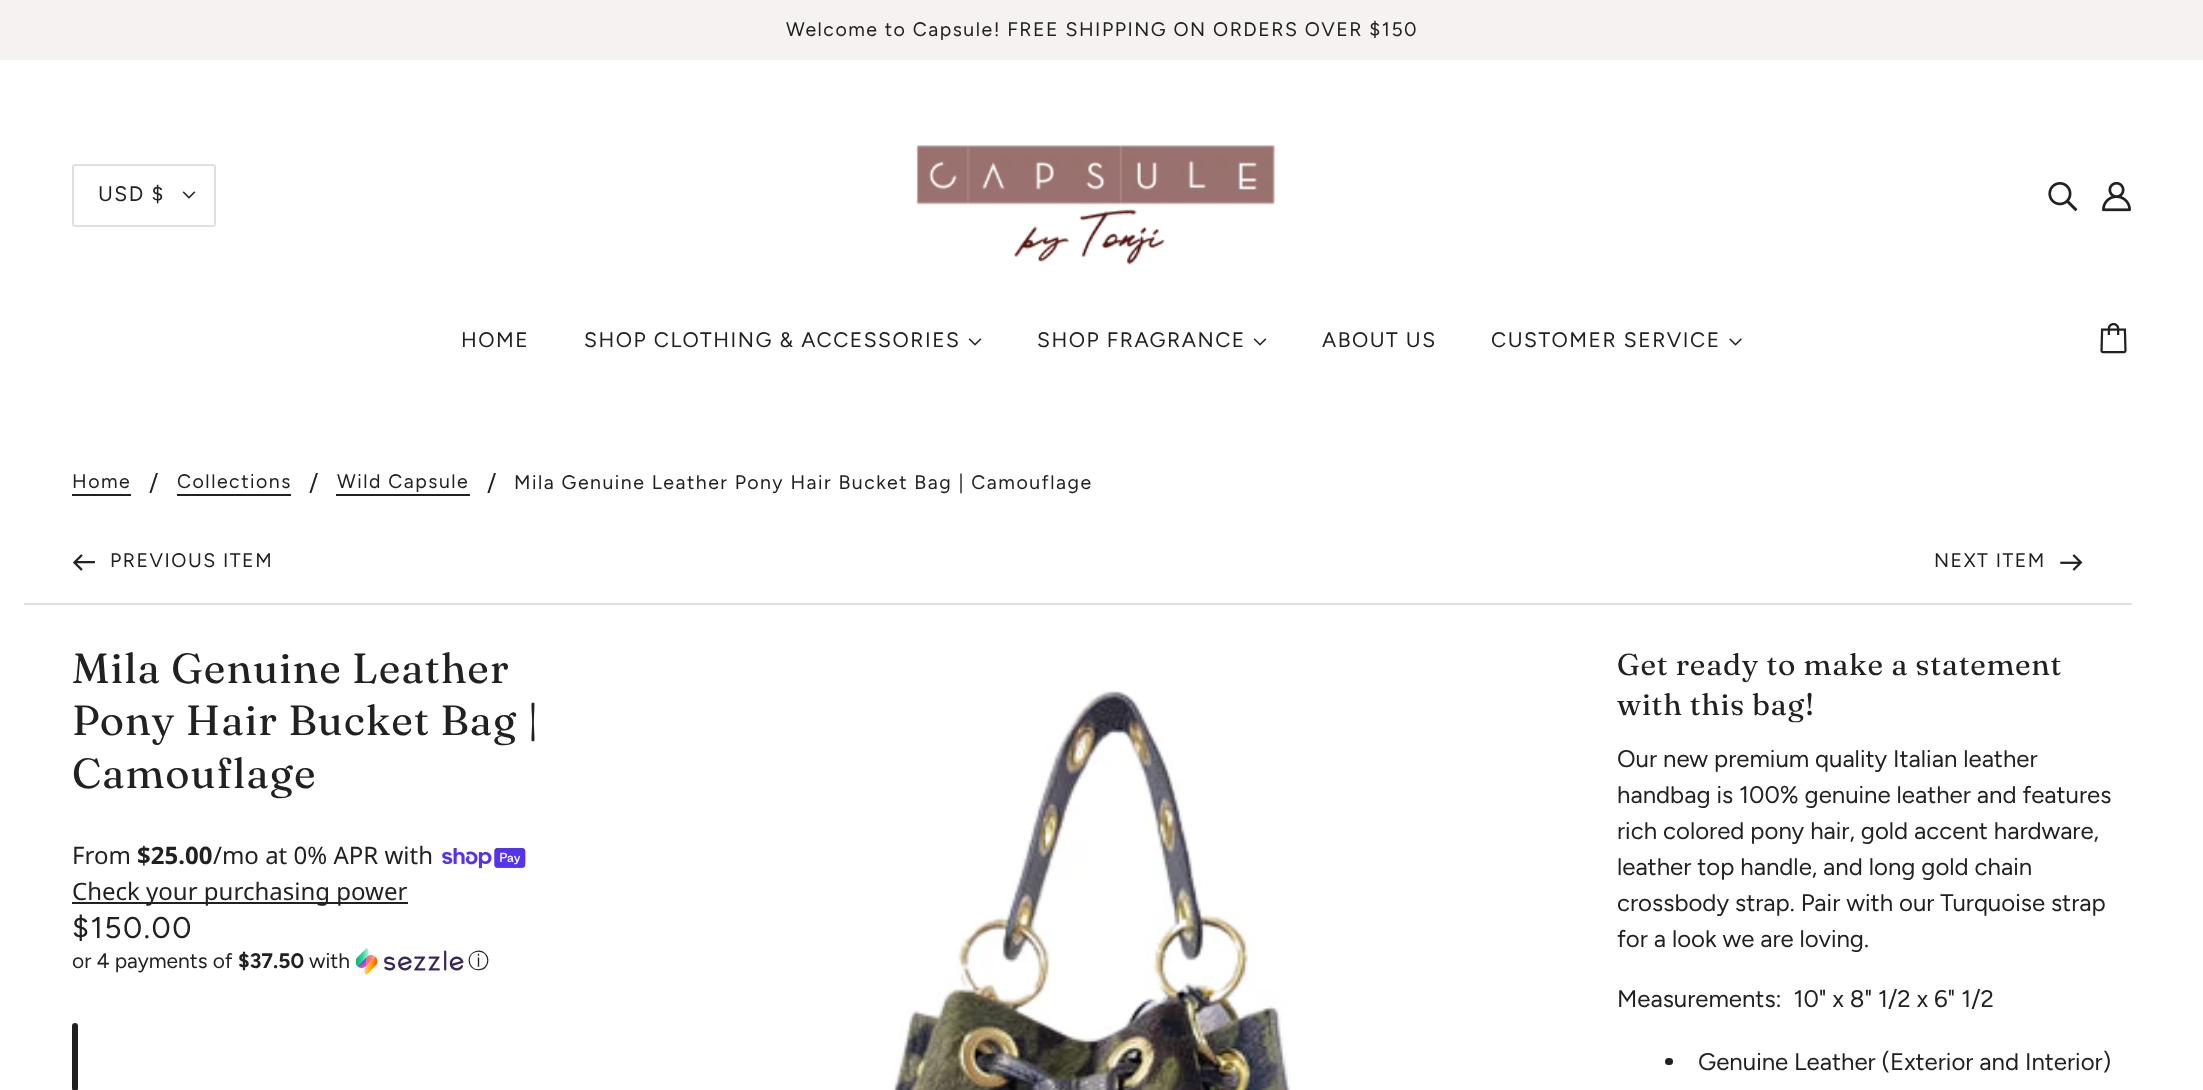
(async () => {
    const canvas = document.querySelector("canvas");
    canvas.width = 2203;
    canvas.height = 1090;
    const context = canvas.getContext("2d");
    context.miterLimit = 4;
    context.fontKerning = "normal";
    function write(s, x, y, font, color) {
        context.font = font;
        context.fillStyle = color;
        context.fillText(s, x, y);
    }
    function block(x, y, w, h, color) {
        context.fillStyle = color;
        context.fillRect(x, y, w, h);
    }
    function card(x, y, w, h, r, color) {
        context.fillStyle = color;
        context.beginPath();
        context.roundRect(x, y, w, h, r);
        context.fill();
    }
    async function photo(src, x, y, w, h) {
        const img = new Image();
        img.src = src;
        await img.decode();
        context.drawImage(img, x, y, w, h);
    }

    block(0, 0, 2203, 1090, "rgb(255, 255, 255)");
    block(0, 0, 2203, 60, "rgb(247, 242, 242)");
    context.letterSpacing = "1.5px";
    write("Welcome to Capsule! FREE SHIPPING ON ORDERS OVER $150", 786, 36, "19.5px Figtree", "rgb(33, 33, 33)");
    context.beginPath();
    context.roundRect(73, 165, 142, 61, 2);
    context.strokeStyle = "rgb(224, 224, 224)";
    context.lineWidth = 2;
    context.stroke();
    write("USD $", 98, 201, "21px Figtree", "rgb(33, 33, 33)");
    await photo("media/1.png", 182, 191, 14, 8);
    await photo("media/2.png", 916, 145, 359, 120);
    await photo("media/3.png", 2048, 182, 30, 30);
    await photo("media/4.png", 2102, 182, 29, 30);
    write("HOME", 461, 347, "21px Figtree", "rgb(33, 33, 33)");
    write("SHOP CLOTHING & ACCESSORIES", 584, 347, "21px Figtree", "rgb(33, 33, 33)");
    await photo("media/1.png", 968, 338, 14, 8);
    write("SHOP FRAGRANCE", 1037, 347, "21px Figtree", "rgb(33, 33, 33)");
    await photo("media/1.png", 1253, 338, 14, 8);
    write("ABOUT US", 1322, 347, "21px Figtree", "rgb(33, 33, 33)");
    write("CUSTOMER SERVICE", 1491, 347, "21px Figtree", "rgb(33, 33, 33)");
    await photo("media/5.png", 1729, 338, 13, 8);
    await photo("media/6.png", 2100, 323, 27, 31);
    write("Home", 72, 488, "19.5px Figtree", "rgb(33, 33, 33)");
    block(72, 494, 59, 2, "rgb(33, 33, 33)");
    context.letterSpacing = "0px";
    write("/", 149, 491, "24px Figtree", "rgb(33, 33, 33)");
    context.letterSpacing = "1.5px";
    write("Collections", 177, 488, "19.5px Figtree", "rgb(33, 33, 33)");
    block(177, 494, 114, 2, "rgb(33, 33, 33)");
    context.letterSpacing = "0px";
    write("/", 309, 491, "24px Figtree", "rgb(33, 33, 33)");
    context.letterSpacing = "1.5px";
    write("Wild Capsule", 337, 488, "19.5px Figtree", "rgb(33, 33, 33)");
    block(336, 494, 134, 2, "rgb(33, 33, 33)");
    context.letterSpacing = "0px";
    write("/", 487, 491, "24px Figtree", "rgb(33, 33, 33)");
    context.letterSpacing = "1.5px";
    write("Mila Genuine Leather Pony Hair Bucket Bag | Camouflage", 514, 489, "19.5px Figtree", "rgb(33, 33, 33)");
    block(24, 603, 2108, 2, "rgb(224, 224, 224)");
    await photo("media/7.png", 72, 554, 23, 17);
    write("PREVIOUS ITEM", 110, 567, "19.5px Figtree", "rgb(33, 33, 33)");
    write("NEXT ITEM", 1934, 567, "19.5px Figtree", "rgb(33, 33, 33)");
    await photo("media/8.png", 2060, 554, 23, 17);
    context.letterSpacing = "1.05px";
    write("Mila Genuine Leather", 72, 683, "42px Fraunces", "rgb(33, 33, 33)");
    write("Pony Hair Bucket Bag |", 72, 735, "42px Fraunces", "rgb(33, 33, 33)");
    write("Camouflage", 72, 788, "42px Fraunces", "rgb(33, 33, 33)");
    await photo("media/9.png", 892, 689, 400, 401);
    context.letterSpacing = "0.75px";
    write("Get ready to make a statement", 1617, 675, "30px 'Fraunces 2'", "rgb(33, 33, 33)");
    write("with this bag!", 1617, 715, "30px 'Fraunces 2'", "rgb(33, 33, 33)");
    context.letterSpacing = "0px";
    write("Our new premium quality Italian leather", 1617, 767, "24px Figtree", "rgb(33, 33, 33)");
    write("handbag is 100% genuine leather and features", 1617, 803, "24px Figtree", "rgb(33, 33, 33)");
    write("rich colored pony hair, gold accent hardware,", 1617, 839, "24px Figtree", "rgb(33, 33, 33)");
    write("leather top handle, and long gold chain", 1617, 875, "24px Figtree", "rgb(33, 33, 33)");
    write("crossbody strap. Pair with our Turquoise strap", 1617, 911, "24px Figtree", "rgb(33, 33, 33)");
    write("for a look we are loving.", 1617, 947, "24px Figtree", "rgb(33, 33, 33)");
    write("Measurements:  10\" x 8\" 1/2 x 6\" 1/2", 1617, 1007, "24px Figtree", "rgb(33, 33, 33)");
    card(1665, 1058, 8, 7, 3.5, "rgb(33, 33, 33)");
    write("Genuine Leather (Exterior and Interior)", 1698, 1070, "24px Figtree", "rgb(33, 33, 33)");
    write("From", 72, 864, "24px Noto Sans", "rgb(33, 33, 33)");
    write("$25.00", 137, 864, "bold 24px Noto Sans", "rgb(33, 33, 33)");
    write("/mo at 0% APR with", 213, 864, "24px Noto Sans", "rgb(33, 33, 33)");
    await photo("media/10.png", 442, 848, 84, 21);
    block(72, 902, 336, 2, "rgb(33, 33, 33)");
    write("Check your purchasing power", 72, 900, "24px Noto Sans", "rgb(33, 33, 33)");
    context.letterSpacing = "1.5px";
    write("$150.00", 72, 938, "30px Figtree", "rgb(33, 33, 33)");
    context.letterSpacing = "0px";
    write("or 4 payments of", 72, 968, "21px Figtree", "rgb(33, 33, 33)");
    write("$37.50", 238, 968, "bold 21px Figtree", "rgb(33, 33, 33)");
    write("with", 309, 968, "21px Figtree", "rgb(33, 33, 33)");
    await photo("media/11.png", 356, 948, 108, 27);
    write("ⓘ", 468, 968, "500 21px WenQuanYi Zen Hei", "rgb(33, 33, 33)");
    card(72, 1023, 6, 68, 3, "rgb(33, 33, 33)");
})();
